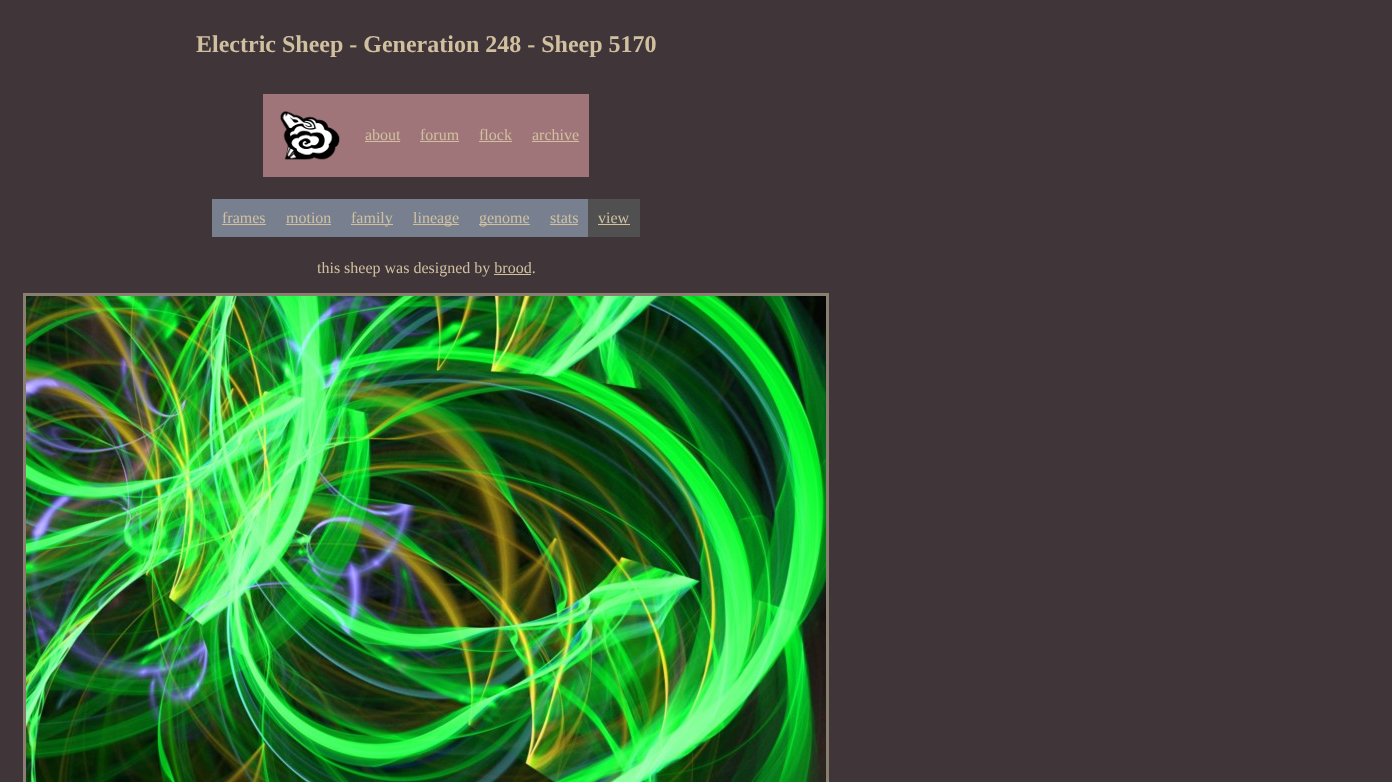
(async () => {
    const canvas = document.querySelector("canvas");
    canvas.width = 1392;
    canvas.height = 782;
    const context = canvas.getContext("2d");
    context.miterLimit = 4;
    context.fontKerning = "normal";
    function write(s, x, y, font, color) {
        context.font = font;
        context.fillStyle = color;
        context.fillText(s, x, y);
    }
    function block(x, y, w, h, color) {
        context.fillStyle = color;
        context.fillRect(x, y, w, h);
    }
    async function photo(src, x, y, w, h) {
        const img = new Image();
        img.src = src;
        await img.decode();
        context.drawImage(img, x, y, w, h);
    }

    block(0, 0, 1392, 782, "rgb(64, 53, 56)");
    write("Electric Sheep - Generation 248 - Sheep 5170", 196, 52, "bold 24px Liberation Serif", "rgb(208, 192, 160)");
    block(263, 94, 326, 83, "rgb(160, 117, 122)");
    await photo("media/1.png", 280, 111, 60, 49);
    write("about", 365, 140, "16px Liberation Serif", "rgb(208, 192, 160)");
    block(365, 141, 35, 1, "rgb(208, 192, 160)");
    write("forum", 420, 140, "16px Liberation Serif", "rgb(208, 192, 160)");
    block(420, 141, 39, 1, "rgb(208, 192, 160)");
    write("flock", 479, 140, "16px Liberation Serif", "rgb(208, 192, 160)");
    block(479, 141, 33, 1, "rgb(208, 192, 160)");
    write("archive", 532, 140, "16px Liberation Serif", "rgb(208, 192, 160)");
    block(532, 141, 47, 1, "rgb(208, 192, 160)");
    block(212, 199, 376, 38, "rgb(120, 128, 144)");
    write("frames", 222, 223, "16px Liberation Serif", "rgb(208, 192, 160)");
    block(222, 224, 44, 1, "rgb(208, 192, 160)");
    write("motion", 286, 223, "16px Liberation Serif", "rgb(208, 192, 160)");
    block(286, 224, 45, 1, "rgb(208, 192, 160)");
    block(351, 224, 42, 1, "rgb(208, 192, 160)");
    write("family", 351, 223, "16px Liberation Serif", "rgb(208, 192, 160)");
    block(413, 224, 46, 1, "rgb(208, 192, 160)");
    write("lineage", 413, 223, "16px Liberation Serif", "rgb(208, 192, 160)");
    block(479, 224, 51, 1, "rgb(208, 192, 160)");
    write("genome", 479, 223, "16px Liberation Serif", "rgb(208, 192, 160)");
    write("stats", 550, 223, "16px Liberation Serif", "rgb(208, 192, 160)");
    block(550, 224, 28, 1, "rgb(208, 192, 160)");
    block(588, 199, 52, 38, "rgb(80, 80, 80)");
    write("view", 598, 223, "16px Liberation Serif", "rgb(208, 192, 160)");
    block(598, 224, 32, 1, "rgb(208, 192, 160)");
    write("this sheep was designed by brood.", 317, 273, "16px Liberation Serif", "rgb(208, 192, 160)");
    block(494, 274, 37, 1, "rgb(208, 192, 160)");
    block(23, 293, 806, 489, "rgb(136, 127, 112)");
    await photo("media/2.png", 26, 296, 800, 486);
})();
